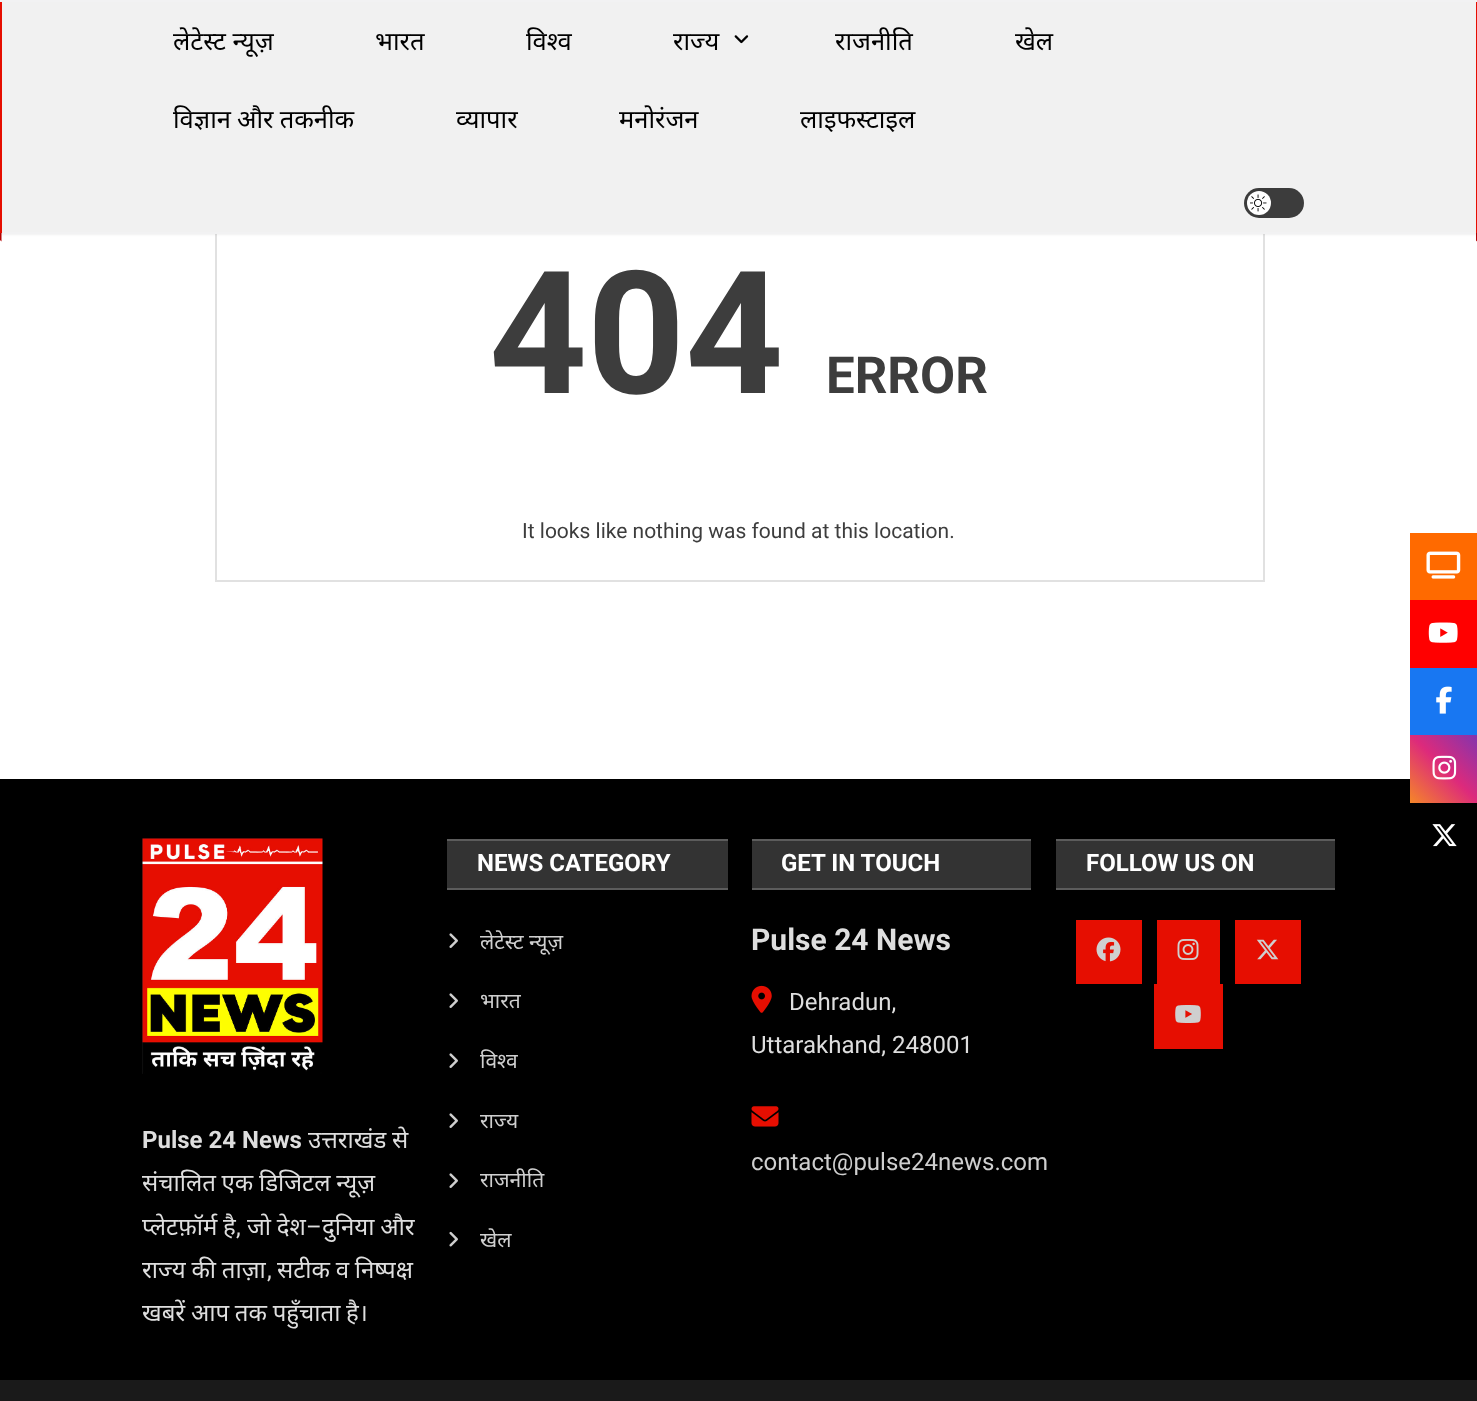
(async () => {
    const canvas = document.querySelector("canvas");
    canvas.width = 1477;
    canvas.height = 1401;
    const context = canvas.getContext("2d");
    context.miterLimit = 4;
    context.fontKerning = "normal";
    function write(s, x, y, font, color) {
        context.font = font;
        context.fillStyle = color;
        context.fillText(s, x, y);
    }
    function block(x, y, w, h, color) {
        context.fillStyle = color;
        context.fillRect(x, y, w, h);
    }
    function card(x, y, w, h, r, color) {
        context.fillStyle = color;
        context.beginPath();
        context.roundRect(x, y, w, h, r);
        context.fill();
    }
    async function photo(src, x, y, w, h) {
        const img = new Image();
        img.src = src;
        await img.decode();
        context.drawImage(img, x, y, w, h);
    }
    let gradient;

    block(0, 0, 1477, 1401, "rgb(255, 255, 255)");
    context.strokeStyle = "rgb(225, 225, 225)";
    context.lineWidth = 2;
    context.strokeRect(216, 109, 1048, 472);
    context.fillStyle = "rgba(0, 0, 0, 0.1)";
    context.filter = "blur(1.5px)";
    context.beginPath();
    context.rect(0, 0, 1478, 234);
    context.fill();
    context.filter = "none";
    context.fillStyle = "rgb(241, 241, 241)";
    context.beginPath();
    context.rect(1, 1, 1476, 232);
    context.fill();
    context.strokeStyle = "rgb(242, 242, 243)";
    context.stroke();
    context.fillStyle = "rgb(180, 0, 0)";
    context.beginPath();
    context.moveTo(1.5, 226.5);
    context.lineTo(1.5, 241.5);
    context.lineTo(-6, 234);
    context.closePath();
    context.fill();
    block(0, 2, 2, 231, "rgb(230, 14, 1)");
    write("लेटेस्ट न्यूज़", 173, 50, "25.5px Noto Sans", "rgb(0, 0, 0)");
    write("भारत", 375, 50, "25.5px Noto Sans", "rgb(0, 0, 0)");
    write("विश्व", 526, 50, "25.5px Noto Sans", "rgb(0, 0, 0)");
    write("राज्य", 673, 50, "25.5px Noto Sans", "rgb(0, 0, 0)");
    await photo("media/1.png", 734, 35, 15, 9);
    write("राजनीति", 835, 50, "25.5px Noto Sans", "rgb(0, 0, 0)");
    write("खेल", 1015, 50, "25.5px Noto Sans", "rgb(0, 0, 0)");
    context.wordSpacing = "-0.5px";
    write("विज्ञान और तकनीक", 173, 128, "25.5px Noto Sans", "rgb(0, 0, 0)");
    context.wordSpacing = "0px";
    write("व्यापार", 456, 128, "25.5px Noto Sans", "rgb(0, 0, 0)");
    write("मनोरंजन", 619, 128, "25.5px Noto Sans", "rgb(0, 0, 0)");
    write("लाइफस्टाइल", 800, 128, "25.5px Noto Sans", "rgb(0, 0, 0)");
    card(1244, 188, 60, 30, 15, "rgb(60, 60, 60)");
    context.fillStyle = "rgb(255, 255, 255)";
    context.beginPath();
    context.arc(1259, 203, 12, 0, Math.PI * 2);
    context.fill();
    await photo("media/2.png", 1250, 194, 17, 18);
    context.fillStyle = "rgb(180, 0, 0)";
    context.beginPath();
    context.moveTo(1476, 241.5);
    context.lineTo(1476, 226.5);
    context.lineTo(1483.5, 234);
    context.closePath();
    context.fill();
    block(1476, 2, 1, 231, "rgb(230, 14, 1)");
    write("404", 489, 393, "bold 171px Roboto", "rgb(61, 61, 61)");
    write("ERROR", 826, 393, "bold 51px Roboto", "rgb(61, 61, 61)");
    write("It looks like nothing was found at this location.", 522, 538, "21px Roboto", "rgb(61, 61, 61)");
    block(0, 779, 1477, 601, "rgb(0, 0, 0)");
    block(447, 841, 281, 47, "rgb(51, 51, 51)");
    block(447, 839, 281, 2, "rgb(92, 92, 92)");
    block(447, 888, 281, 2, "rgb(92, 92, 92)");
    write("NEWS CATEGORY", 477, 871, "bold 24px Roboto", "rgb(255, 255, 255)");
    await photo("media/3.png", 449, 933, 9, 15);
    write("लेटेस्ट न्यूज़", 480, 949, "21px Noto Sans", "rgb(207, 207, 207)");
    await photo("media/3.png", 449, 993, 9, 15);
    write("भारत", 480, 1008, "21px Noto Sans", "rgb(207, 207, 207)");
    await photo("media/3.png", 449, 1053, 9, 15);
    write("विश्व", 480, 1068, "21px Noto Sans", "rgb(207, 207, 207)");
    await photo("media/3.png", 449, 1113, 9, 15);
    write("राज्य", 480, 1128, "21px Noto Sans", "rgb(207, 207, 207)");
    await photo("media/3.png", 449, 1173, 9, 15);
    write("राजनीति", 480, 1187, "21px Noto Sans", "rgb(207, 207, 207)");
    await photo("media/4.png", 449, 1231, 9, 16);
    write("खेल", 480, 1247, "21px Noto Sans", "rgb(207, 207, 207)");
    block(752, 841, 279, 47, "rgb(51, 51, 51)");
    block(752, 839, 279, 2, "rgb(92, 92, 92)");
    block(752, 888, 279, 2, "rgb(92, 92, 92)");
    write("GET IN TOUCH", 781, 871, "bold 24px Roboto", "rgb(255, 255, 255)");
    write("Pulse 24 News", 751, 950, "bold 30px Roboto", "rgb(222, 222, 222)");
    await photo("media/5.png", 751, 985, 21, 28);
    write("Dehradun,", 789, 1010, "24px Roboto", "rgb(222, 222, 222)");
    write("Uttarakhand, 248001", 751, 1053, "24px Roboto", "rgb(222, 222, 222)");
    await photo("media/6.png", 751, 1106, 28, 21);
    write("contact@pulse24news.com", 751, 1170, "24px Roboto", "rgb(207, 207, 207)");
    block(1056, 841, 279, 47, "rgb(51, 51, 51)");
    block(1056, 839, 279, 2, "rgb(92, 92, 92)");
    block(1056, 888, 279, 2, "rgb(92, 92, 92)");
    write("FOLLOW US ON", 1086, 871, "bold 24px Roboto", "rgb(255, 255, 255)");
    block(1076, 920, 66, 64, "rgb(230, 14, 1)");
    await photo("media/7.png", 1096, 937, 25, 25);
    block(1157, 920, 63, 64, "rgb(230, 14, 1)");
    await photo("media/8.png", 1177, 939, 22, 21);
    block(1235, 920, 66, 64, "rgb(230, 14, 1)");
    await photo("media/9.png", 1256, 939, 23, 21);
    block(1154, 984, 69, 65, "rgb(230, 14, 1)");
    await photo("media/10.png", 1175, 1005, 26, 18);
    await photo("media/11.png", 142, 838, 181, 236);
    write("Pulse 24 News", 142, 1148, "bold 24px Roboto", "rgb(222, 222, 222)");
    context.wordSpacing = "-0.5px";
    write("उत्तराखंड से", 308, 1148, "24px Noto Sans", "rgb(222, 222, 222)");
    write("संचालित एक डिजिटल न्यूज़", 142, 1191, "24px Noto Sans", "rgb(222, 222, 222)");
    write("प्लेटफ़ॉर्म है", 142, 1235, "24px Noto Sans", "rgb(222, 222, 222)");
    write("जो देश", 247, 1235, "24px Noto Sans", "rgb(222, 222, 222)");
    context.wordSpacing = "0px";
    write("–", 306, 1235, "24px Roboto", "rgb(222, 222, 222)");
    context.wordSpacing = "-0.5px";
    write("दुनिया और", 322, 1235, "24px Noto Sans", "rgb(222, 222, 222)");
    context.wordSpacing = "0px";
    write(",", 236, 1235, "24px Roboto", "rgb(222, 222, 222)");
    context.wordSpacing = "-0.5px";
    write("राज्य की ताज़ा", 142, 1278, "24px Noto Sans", "rgb(222, 222, 222)");
    context.wordSpacing = "0px";
    write(",", 267, 1278, "24px Roboto", "rgb(222, 222, 222)");
    context.wordSpacing = "-0.5px";
    write("सटीक व निष्पक्ष", 277, 1278, "24px Noto Sans", "rgb(222, 222, 222)");
    write("खबरें आप तक पहुँचाता है।", 142, 1321, "24px Noto Sans", "rgb(222, 222, 222)");
    block(0, 1380, 1477, 21, "rgb(26, 26, 26)");
    block(1410, 533, 67, 67, "rgb(255, 106, 0)");
    await photo("media/12.png", 1426, 551, 35, 28);
    block(1410, 600, 67, 68, "rgb(255, 0, 0)");
    await photo("media/13.png", 1428, 622, 30, 21);
    block(1410, 668, 67, 67, "rgb(24, 119, 242)");
    await photo("media/14.png", 1436, 686, 16, 28);
    gradient = context.createLinearGradient(1410, 802, 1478, 734);
    gradient.addColorStop(0, "rgb(245, 133, 41)");
    gradient.addColorStop(0.5, "rgb(221, 42, 123)");
    gradient.addColorStop(1, "rgb(129, 52, 175)");
    context.fillStyle = gradient;
    context.fillRect(1410, 735, 67, 68);
    await photo("media/15.png", 1432, 755, 25, 25);
    await photo("media/16.png", 1432, 824, 25, 23);
})();
